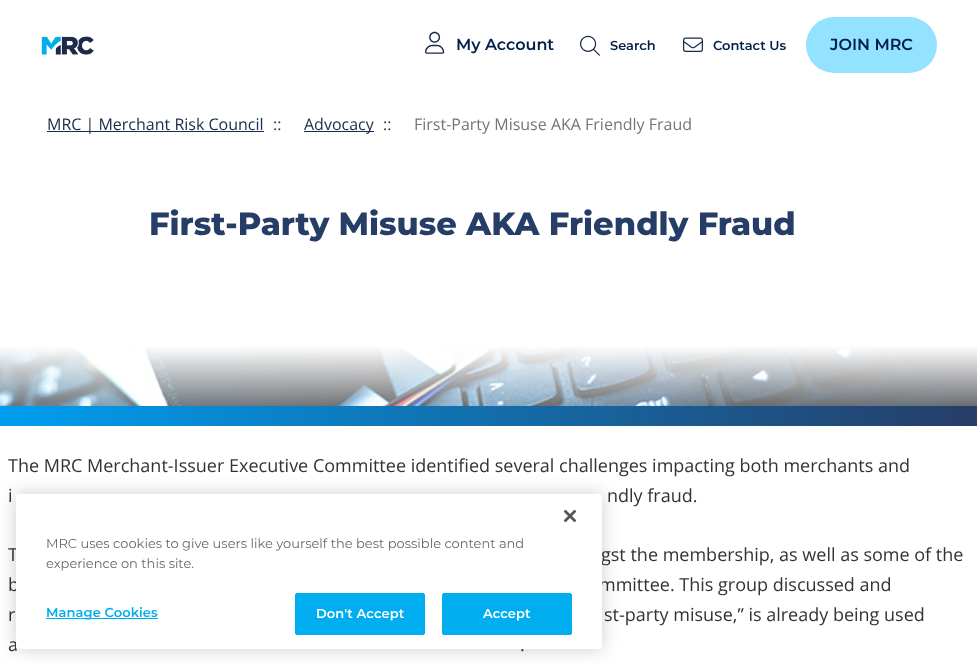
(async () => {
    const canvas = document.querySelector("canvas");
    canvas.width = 977;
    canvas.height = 665;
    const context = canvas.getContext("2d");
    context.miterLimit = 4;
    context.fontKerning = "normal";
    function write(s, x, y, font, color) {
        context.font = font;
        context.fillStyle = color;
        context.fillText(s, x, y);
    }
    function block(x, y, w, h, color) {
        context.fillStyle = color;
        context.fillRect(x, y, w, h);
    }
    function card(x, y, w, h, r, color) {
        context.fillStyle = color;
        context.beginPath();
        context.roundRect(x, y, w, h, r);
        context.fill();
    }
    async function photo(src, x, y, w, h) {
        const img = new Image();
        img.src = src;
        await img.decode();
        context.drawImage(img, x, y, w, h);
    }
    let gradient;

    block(0, 0, 977, 665, "rgb(255, 255, 255)");
    await photo("media/1.png", 41, 36, 53, 19);
    await photo("media/2.png", 425, 31, 20, 23);
    write("My Account", 456, 50, "600 16px Montserrat", "rgb(2, 30, 76)");
    await photo("media/3.png", 580, 35, 20, 21);
    write("Search", 610, 50, "600 13px Montserrat", "rgb(2, 30, 76)");
    await photo("media/4.png", 683, 37, 20, 15);
    write("Contact Us", 713, 50, "600 13px Montserrat", "rgb(2, 30, 76)");
    card(806, 17, 131, 56, 28, "rgb(147, 226, 255)");
    write("JOIN MRC", 830, 50, "600 16px Montserrat", "rgb(2, 30, 76)");
    block(47, 131, 217, 1, "rgb(27, 43, 73)");
    write("MRC | Merchant Risk Council", 47, 130, "16px Open Sans", "rgb(27, 43, 73)");
    write("::", 273, 130, "16px Open Sans", "rgb(51, 51, 51)");
    block(304, 131, 70, 1, "rgb(27, 43, 73)");
    write("Advocacy", 304, 130, "16px Open Sans", "rgb(27, 43, 73)");
    write("::", 383, 130, "16px Open Sans", "rgb(51, 51, 51)");
    write("First-Party Misuse AKA Friendly Fraud", 414, 130, "16px Open Sans", "rgb(117, 117, 117)");
    await photo("media/5.png", 0, 176, 977, 230);
    write("First-Party Misuse AKA Friendly Fraud", 149, 235, "800 32px Montserrat", "rgb(38, 61, 103)");
    gradient = context.createLinearGradient(977, 416, 0, 416);
    gradient.addColorStop(0, "rgb(38, 61, 103)");
    gradient.addColorStop(1, "rgb(0, 158, 239)");
    context.fillStyle = gradient;
    context.fillRect(0, 406, 977, 20);
    write("The MRC Merchant-Issuer Executive Committee identified several challenges impacting both merchants and", 8, 472, "18px Open Sans", "rgb(51, 51, 51)");
    write("i", 8, 502, "18px Open Sans", "rgb(51, 51, 51)");
    write("ndly fraud.", 607, 502, "18px Open Sans", "rgb(51, 51, 51)");
    write("T", 8, 561, "18px Open Sans", "rgb(51, 51, 51)");
    write("gst the membership, as well as some of the", 601, 561, "18px Open Sans", "rgb(51, 51, 51)");
    write("b", 8, 591, "18px Open Sans", "rgb(51, 51, 51)");
    write("mmittee. This group discussed and", 599, 591, "18px Open Sans", "rgb(51, 51, 51)");
    write("r", 8, 621, "18px Open Sans", "rgb(51, 51, 51)");
    write("st-party misuse,” is already being used", 604, 621, "18px Open Sans", "rgb(51, 51, 51)");
    write("a", 8, 651, "18px Open Sans", "rgb(51, 51, 51)");
    write(".", 520, 651, "18px Open Sans", "rgb(51, 51, 51)");
    context.fillStyle = "rgba(0, 0, 0, 0.2)";
    context.filter = "blur(9px)";
    context.beginPath();
    context.roundRect(16, 494, 586, 155, 2.5);
    context.fill();
    context.filter = "none";
    card(16, 494, 586, 155, 2.5, "rgb(255, 255, 255)");
    await photo("media/6.png", 564, 510, 12, 12);
    write("MRC uses cookies to give users like yourself the best possible content and", 46, 548, "13px Montserrat", "rgb(105, 105, 105)");
    write("experience on this site.", 46, 568, "13px Montserrat", "rgb(105, 105, 105)");
    block(46, 618, 112, 1, "rgb(0, 174, 239)");
    context.letterSpacing = "0.1px";
    write("Manage Cookies", 46, 617, "600 13px Montserrat", "rgb(0, 174, 239)");
    context.beginPath();
    context.roundRect(295.5, 593.5, 129, 41, 1.5);
    context.fill();
    context.strokeStyle = "rgb(0, 174, 239)";
    context.stroke();
    write("Don't Accept", 316, 618, "600 13px Montserrat", "rgb(255, 255, 255)");
    context.fillStyle = "rgb(0, 174, 239)";
    context.beginPath();
    context.roundRect(442.5, 593.5, 129, 41, 1.5);
    context.fill();
    context.stroke();
    write("Accept", 483, 618, "600 13px Montserrat", "rgb(255, 255, 255)");
})();
